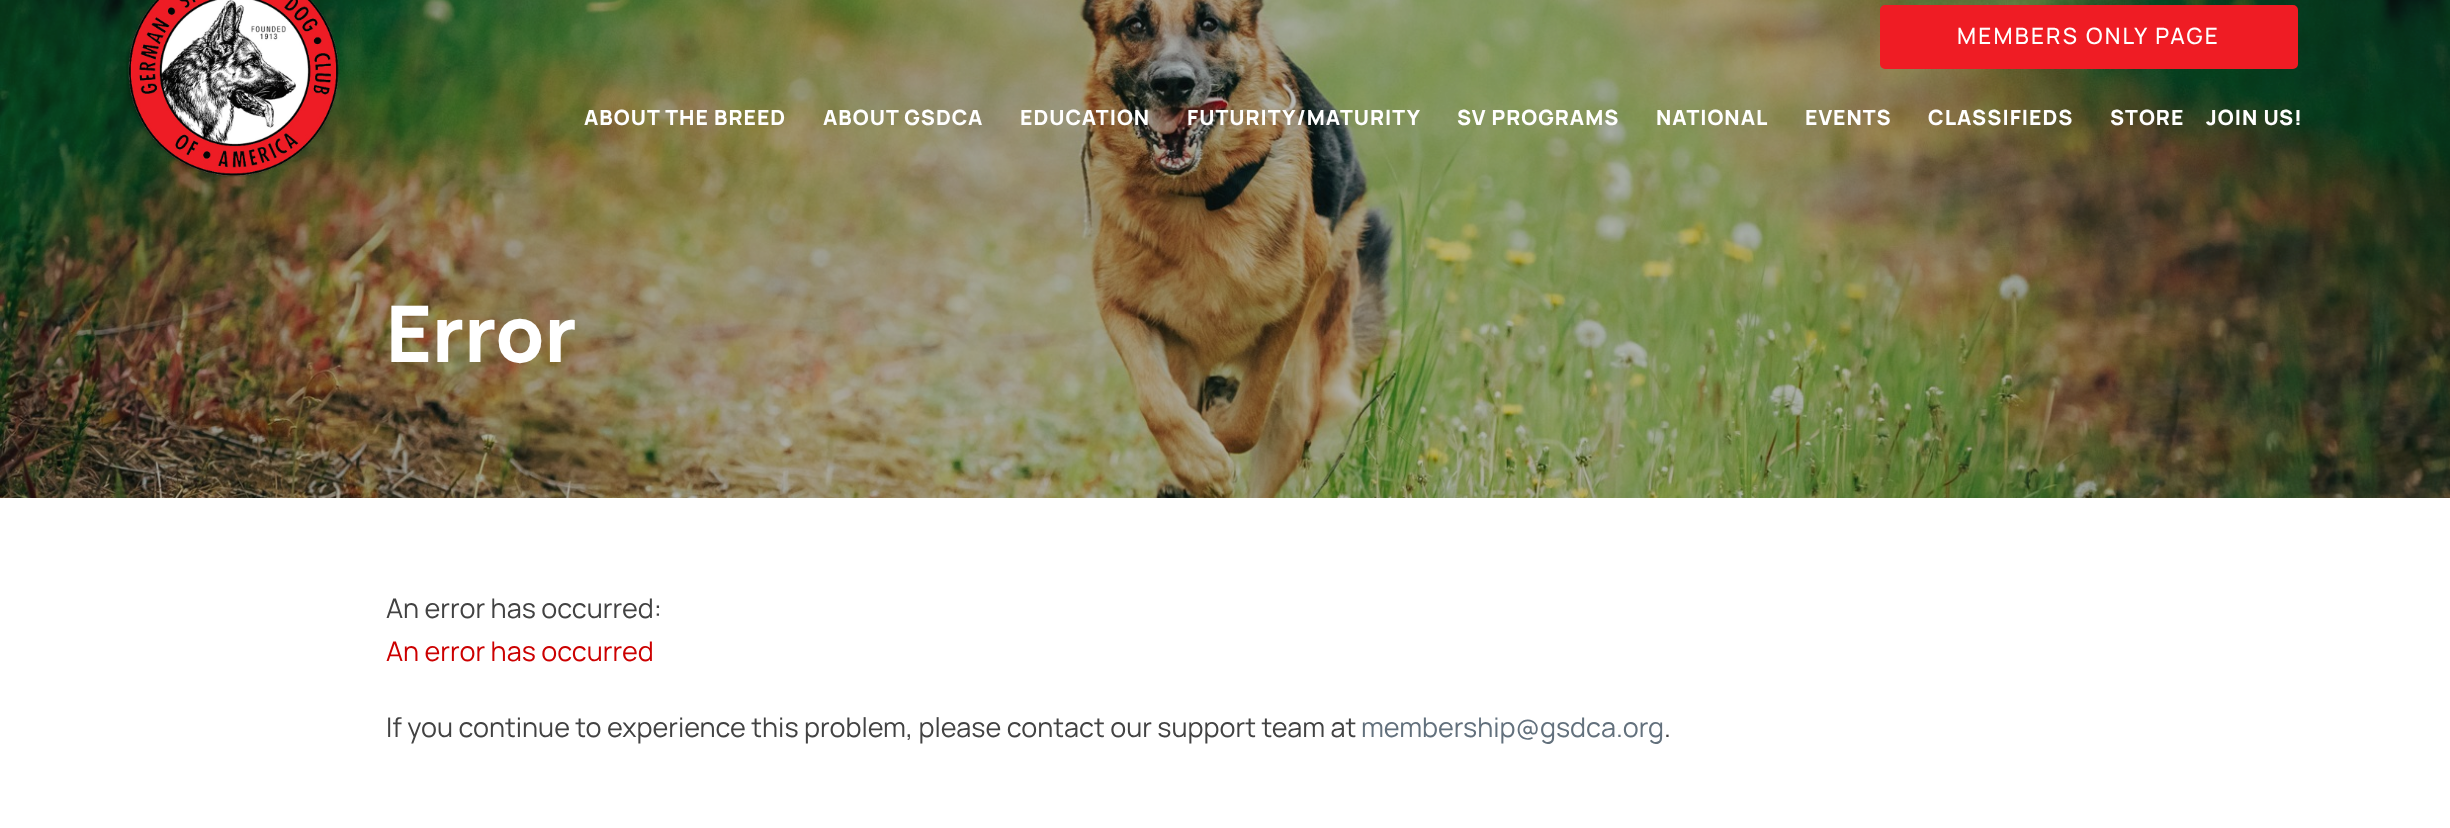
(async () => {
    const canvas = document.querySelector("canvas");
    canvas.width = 2450;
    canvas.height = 828;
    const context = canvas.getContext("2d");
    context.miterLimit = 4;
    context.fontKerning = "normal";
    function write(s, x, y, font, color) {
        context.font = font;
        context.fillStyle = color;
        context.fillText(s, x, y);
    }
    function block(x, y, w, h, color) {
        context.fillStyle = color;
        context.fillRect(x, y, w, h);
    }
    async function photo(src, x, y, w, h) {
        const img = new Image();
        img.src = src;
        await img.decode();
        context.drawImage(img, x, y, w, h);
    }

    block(0, 0, 2450, 828, "rgb(255, 255, 255)");
    await photo("media/2.png", 0, 0, 2450, 498);
    await photo("media/1.png", 126, 0, 213, 177);
    context.fillStyle = "rgb(239, 28, 36)";
    context.beginPath();
    context.roundRect(1881.5, 6.5, 415, 61, 3.5);
    context.fill();
    context.strokeStyle = "rgb(239, 28, 36)";
    context.lineWidth = 3;
    context.stroke();
    context.letterSpacing = "2.25px";
    write("MEMBERS ONLY PAGE", 1957, 44, "500 22.5px Manrope", "rgb(255, 255, 255)");
    context.letterSpacing = "1px";
    write("ABOUT THE BREED", 584, 125, "800 21px Manrope", "rgb(255, 255, 255)");
    write("ABOUT GSDCA", 823, 125, "800 21px Manrope", "rgb(255, 255, 255)");
    write("EDUCATION", 1020, 125, "800 21px Manrope", "rgb(255, 255, 255)");
    write("FUTURITY/MATURITY", 1187, 125, "800 21px Manrope", "rgb(255, 255, 255)");
    write("SV PROGRAMS", 1457, 125, "800 21px Manrope", "rgb(255, 255, 255)");
    write("NATIONAL", 1656, 125, "800 21px Manrope", "rgb(255, 255, 255)");
    write("EVENTS", 1805, 125, "800 21px Manrope", "rgb(255, 255, 255)");
    write("CLASSIFIEDS", 1928, 125, "800 21px Manrope", "rgb(255, 255, 255)");
    write("STORE", 2110, 125, "800 21px Manrope", "rgb(255, 255, 255)");
    write("JOIN US!", 2206, 125, "800 21px Manrope", "rgb(255, 255, 255)");
    context.letterSpacing = "0px";
    write("Error", 386, 362, "800 78px Manrope", "rgb(255, 255, 255)");
    write("An error has occurred:", 386, 618, "27px Manrope", "rgb(66, 66, 66)");
    write("An error has occurred", 386, 661, "27px Manrope", "rgb(204, 0, 0)");
    write("If you continue to experience this problem, please contact our support team at", 386, 737, "27px Manrope", "rgb(66, 66, 66)");
    write("membership@gsdca.org", 1361, 737, "27px Manrope", "rgb(98, 112, 124)");
    write(".", 1664, 737, "27px Manrope", "rgb(66, 66, 66)");
})();
